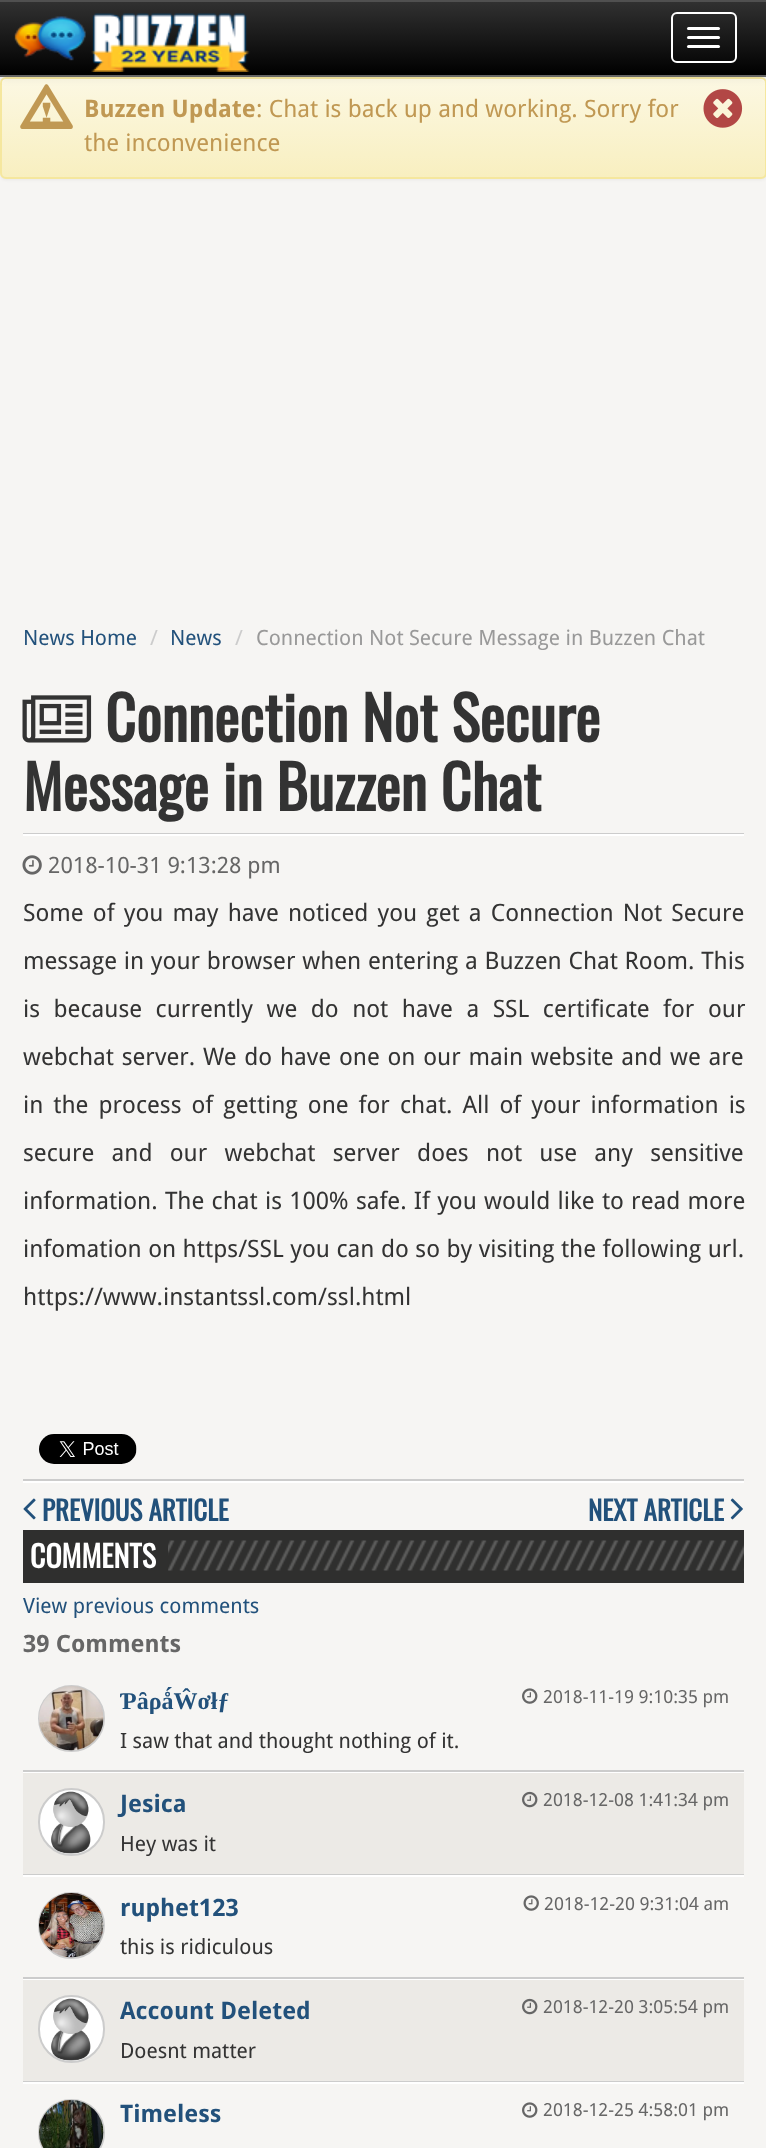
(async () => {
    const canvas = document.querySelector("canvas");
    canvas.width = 766;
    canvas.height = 2148;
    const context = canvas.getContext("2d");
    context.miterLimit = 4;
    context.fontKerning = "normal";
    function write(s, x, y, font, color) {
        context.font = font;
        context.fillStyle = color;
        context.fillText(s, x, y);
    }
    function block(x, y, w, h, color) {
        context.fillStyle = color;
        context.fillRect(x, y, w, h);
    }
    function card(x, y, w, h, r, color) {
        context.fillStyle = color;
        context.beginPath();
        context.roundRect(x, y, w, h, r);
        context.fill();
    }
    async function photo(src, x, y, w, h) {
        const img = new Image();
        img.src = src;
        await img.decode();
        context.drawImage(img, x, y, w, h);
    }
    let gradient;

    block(0, 0, 766, 2148, "rgb(246, 245, 243)");
    context.fillStyle = "rgba(0, 0, 0, 0.05)";
    context.filter = "blur(1.5px)";
    context.beginPath();
    context.roundRect(0, 78, 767, 102, 6);
    context.fill();
    context.filter = "none";
    context.save();
    context.beginPath();
    context.roundRect(0, 77, 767, 102, 6);
    context.clip();
    gradient = context.createLinearGradient(383, 78, 383, 177);
    gradient.addColorStop(0, "rgb(252, 248, 227)");
    gradient.addColorStop(1, "rgb(248, 239, 192)");
    context.fillStyle = gradient;
    context.fillRect(0, 78, 766, 99);
    context.restore();
    context.fillStyle = "rgb(253, 250, 234)";
    context.beginPath();
    context.moveTo(6, 80);
    context.lineTo(760, 80);
    context.bezierCurveTo(763, 80, 765, 82, 765, 84);
    context.lineTo(765, 83);
    context.bezierCurveTo(765, 80, 763, 78, 760, 78);
    context.lineTo(7, 78);
    context.bezierCurveTo(4, 78, 2, 80, 2, 83);
    context.lineTo(2, 84);
    context.bezierCurveTo(2, 82, 4, 80, 6, 80);
    context.closePath();
    context.fill();
    context.beginPath();
    context.roundRect(1, 78, 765, 100, 5);
    context.strokeStyle = "rgb(245, 231, 158)";
    context.lineWidth = 2;
    context.stroke();
    await photo("media/2.png", 20, 84, 53, 45);
    await photo("media/3.png", 703, 89, 40, 39);
    context.fillStyle = "rgba(0, 0, 0, 0.07)";
    context.filter = "blur(4px)";
    context.beginPath();
    context.rect(0, 2, 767, 76);
    context.fill();
    context.filter = "none";
    gradient = context.createLinearGradient(383, 0, 383, 75);
    gradient.addColorStop(0, "rgb(50, 50, 50)");
    gradient.addColorStop(1, "rgb(0, 0, 0)");
    context.fillStyle = gradient;
    context.fillRect(0, 2, 766, 73);
    block(0, 0, 766, 2, "rgb(80, 80, 80)");
    block(0, 75, 766, 2, "rgb(102, 102, 102)");
    await photo("media/1.png", 14, 13, 236, 59);
    context.beginPath();
    context.roundRect(672, 13, 64, 49, 5);
    context.strokeStyle = "rgb(255, 255, 255)";
    context.stroke();
    card(687, 27, 33, 3, 1.5, "rgb(255, 255, 255)");
    card(687, 36, 33, 3, 1.5, "rgb(255, 255, 255)");
    card(687, 45, 33, 3, 1.5, "rgb(255, 255, 255)");
    write("Buzzen Update", 84, 117, "bold 24px Droid Sans", "rgb(192, 152, 83)");
    write(": Chat is back up and working. Sorry for", 256, 117, "24px Droid Sans", "rgb(192, 152, 83)");
    write("the inconvenience", 84, 151, "24px Droid Sans", "rgb(192, 152, 83)");
    write("News Home", 23, 645, "21px Droid Sans", "rgb(34, 81, 123)");
    write("/", 150, 645, "21px Droid Sans", "rgb(204, 204, 204)");
    write("News", 170, 645, "21px Droid Sans", "rgb(34, 81, 123)");
    write("/", 235, 645, "21px Droid Sans", "rgb(204, 204, 204)");
    write("Connection Not Secure Message in Buzzen Chat", 256, 645, "21px Droid Sans", "rgb(153, 153, 153)");
    await photo("media/4.png", 22, 695, 70, 48);
    write("Connection Not Secure", 105, 742, "bold 60px Oswald", "rgb(51, 51, 51)");
    write("Message in Buzzen Chat", 23, 811, "bold 60px Oswald", "rgb(51, 51, 51)");
    block(23, 833, 721, 1, "rgb(204, 204, 204)");
    block(23, 834, 721, 2, "rgb(255, 255, 255)");
    await photo("media/5.png", 22, 855, 20, 20);
    write("2018-10-31 9:13:28 pm", 48, 873, "22.5px Droid Sans", "rgb(102, 102, 102)");
    context.wordSpacing = "2.9px";
    write("Some of you may have noticed you get a Connection Not Secure", 23, 921, "24px Droid Sans", "rgb(51, 51, 51)");
    context.wordSpacing = "0.5px";
    write("message in your browser when entering a Buzzen Chat Room. This", 23, 969, "24px Droid Sans", "rgb(51, 51, 51)");
    context.wordSpacing = "7.25px";
    write("is because currently we do not have a SSL certificate for our", 23, 1017, "24px Droid Sans", "rgb(51, 51, 51)");
    context.wordSpacing = "1.5px";
    write("webchat server. We do have one on our main website and we are", 23, 1065, "24px Droid Sans", "rgb(51, 51, 51)");
    context.wordSpacing = "3.75px";
    write("in the process of getting one for chat. All of your information is", 23, 1113, "24px Droid Sans", "rgb(51, 51, 51)");
    context.wordSpacing = "11px";
    write("secure and our webchat server does not use any sensitive", 23, 1161, "24px Droid Sans", "rgb(51, 51, 51)");
    context.wordSpacing = "1px";
    write("information. The chat is 100% safe. If you would like to read more", 23, 1209, "24px Droid Sans", "rgb(51, 51, 51)");
    context.wordSpacing = "0.25px";
    write("infomation on https/SSL you can do so by visiting the following url.", 23, 1257, "24px Droid Sans", "rgb(51, 51, 51)");
    context.wordSpacing = "0px";
    write("https://www.instantssl.com/ssl.html", 23, 1305, "24px Droid Sans", "rgb(51, 51, 51)");
    await photo("media/6.png", 39, 1434, 98, 30);
    block(23, 1479, 721, 2, "rgb(204, 204, 204)");
    block(23, 1481, 721, 2, "rgb(255, 255, 255)");
    await photo("media/7.png", 23, 1498, 13, 22);
    write("PREVIOUS ARTICLE", 42, 1521, "bold 27px Oswald", "rgb(34, 81, 123)");
    write("NEXT ARTICLE", 588, 1521, "bold 27px Oswald", "rgb(34, 81, 123)");
    await photo("media/8.png", 730, 1498, 13, 22);
    block(23, 1530, 721, 53, "rgb(47, 47, 46)");
    await photo("media/9.png", 168, 1540, 576, 31);
    write("COMMENTS", 30, 1568, "bold 30px Oswald", "rgb(255, 255, 255)");
    write("View previous comments", 23, 1613, "21px Droid Sans", "rgb(34, 81, 123)");
    write("39 Comments", 23, 1652, "bold 24px Droid Sans", "rgb(102, 102, 102)");
    context.beginPath();
    context.arc(71.5, 1718.5, 32.5, 0, Math.PI * 2);
    context.strokeStyle = "rgb(204, 204, 204)";
    context.stroke();
    await photo("media/10.png", 39, 1686, 65, 65);
    write("ƤȃρǻŴơłƒ", 120, 1709, "bold 24px Liberation Serif", "rgb(34, 81, 123)");
    await photo("media/11.png", 522, 1688, 16, 16);
    write("2018-11-19 9:10:35 pm", 543, 1703, "18px Droid Sans", "rgb(102, 102, 102)");
    write("I saw that and thought nothing of it.", 120, 1748, "21px Droid Sans", "rgb(51, 51, 51)");
    block(23, 1770, 721, 2, "rgb(204, 204, 204)");
    block(23, 1772, 721, 1, "rgb(255, 255, 255)");
    block(23, 1773, 721, 101, "rgb(236, 234, 230)");
    context.fillStyle = "rgb(255, 255, 255)";
    context.beginPath();
    context.roundRect(39, 1789, 65, 66, 32.5);
    context.fill();
    context.stroke();
    await photo("media/12.png", 51, 1791, 40, 63);
    write("Jesica", 120, 1812, "bold 24px Droid Sans", "rgb(34, 81, 123)");
    await photo("media/13.png", 522, 1791, 16, 17);
    write("2018-12-08 1:41:34 pm", 543, 1806, "18px Droid Sans", "rgb(102, 102, 102)");
    write("Hey was it", 120, 1851, "21px Droid Sans", "rgb(51, 51, 51)");
    block(23, 1874, 721, 1, "rgb(204, 204, 204)");
    block(23, 1875, 721, 2, "rgb(255, 255, 255)");
    context.beginPath();
    context.arc(71.5, 1925.5, 32.5, 0, Math.PI * 2);
    context.stroke();
    await photo("media/14.png", 39, 1893, 65, 65);
    write("ruphet123", 120, 1916, "bold 24px Droid Sans", "rgb(34, 81, 123)");
    await photo("media/15.png", 523, 1895, 16, 16);
    write("2018-12-20 9:31:04 am", 544, 1910, "18px Droid Sans", "rgb(102, 102, 102)");
    write("this is ridiculous", 120, 1954, "21px Droid Sans", "rgb(51, 51, 51)");
    block(23, 1977, 721, 2, "rgb(204, 204, 204)");
    block(23, 1979, 721, 1, "rgb(255, 255, 255)");
    block(23, 1980, 721, 101, "rgb(236, 234, 230)");
    context.fillStyle = "rgb(255, 255, 255)";
    context.beginPath();
    context.roundRect(39, 1996, 65, 66, 32.5);
    context.fill();
    context.stroke();
    await photo("media/12.png", 51, 1998, 40, 63);
    write("Account Deleted", 120, 2019, "bold 24px Droid Sans", "rgb(34, 81, 123)");
    await photo("media/13.png", 522, 1998, 16, 17);
    write("2018-12-20 3:05:54 pm", 543, 2013, "18px Droid Sans", "rgb(102, 102, 102)");
    write("Doesnt matter", 120, 2058, "21px Droid Sans", "rgb(51, 51, 51)");
    block(23, 2081, 721, 1, "rgb(204, 204, 204)");
    block(23, 2082, 721, 2, "rgb(255, 255, 255)");
    context.beginPath();
    context.arc(71.5, 2132.5, 32.5, 0, Math.PI * 2);
    context.stroke();
    await photo("media/16.png", 39, 2100, 65, 48);
    write("Timeless", 120, 2122, "bold 24px Droid Sans", "rgb(34, 81, 123)");
    await photo("media/11.png", 522, 2102, 16, 16);
    write("2018-12-25 4:58:01 pm", 543, 2116, "18px Droid Sans", "rgb(102, 102, 102)");
})();
